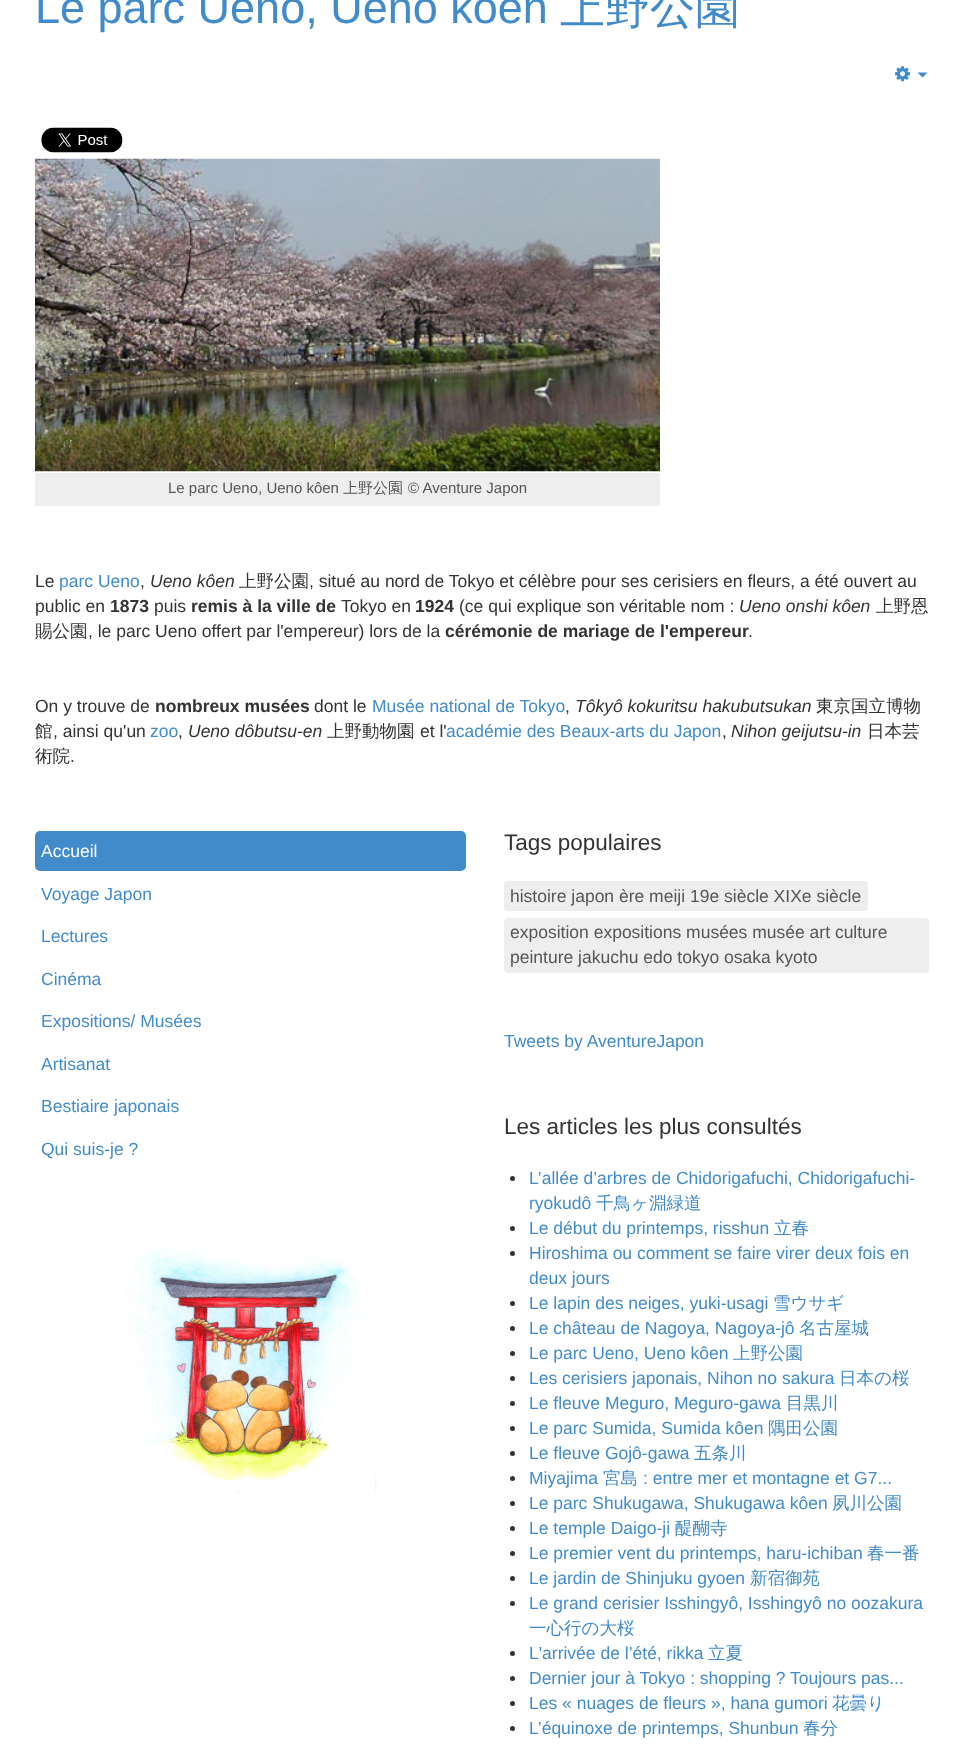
(async () => {
    const canvas = document.querySelector("canvas");
    canvas.width = 969;
    canvas.height = 1754;
    const context = canvas.getContext("2d");
    context.miterLimit = 4;
    context.fontKerning = "normal";
    function write(s, x, y, font, color) {
        context.font = font;
        context.fillStyle = color;
        context.fillText(s, x, y);
    }
    function block(x, y, w, h, color) {
        context.fillStyle = color;
        context.fillRect(x, y, w, h);
    }
    function card(x, y, w, h, r, color) {
        context.fillStyle = color;
        context.beginPath();
        context.roundRect(x, y, w, h, r);
        context.fill();
    }
    async function photo(src, x, y, w, h) {
        const img = new Image();
        img.src = src;
        await img.decode();
        context.drawImage(img, x, y, w, h);
    }

    block(0, 0, 969, 1754, "rgb(255, 255, 255)");
    write("Le parc Ueno, Ueno kôen", 35, 23, "45px Liberation Sans", "rgb(66, 139, 202)");
    write("上野公園", 560, 23, "500 45px WenQuanYi Zen Hei", "rgb(66, 139, 202)");
    await photo("media/1.png", 895, 66, 15, 16);
    context.beginPath();
    context.moveTo(917.5, 72.5);
    context.lineTo(927.5, 72.5);
    context.lineTo(922.5, 77.5);
    context.closePath();
    context.fill();
    await photo("media/2.png", 41, 127, 82, 26);
    await photo("media/3.png", 35, 158, 625, 314);
    block(35, 473, 625, 33, "rgb(238, 238, 238)");
    write("Le parc Ueno, Ueno kôen", 168, 493, "15px Liberation Sans", "rgb(85, 85, 85)");
    write("上野公園", 343, 493, "500 15px WenQuanYi Zen Hei", "rgb(85, 85, 85)");
    write("© Aventure Japon", 408, 493, "15px Liberation Sans", "rgb(85, 85, 85)");
    write("Le", 35, 587, "17.5px Liberation Sans", "rgb(51, 51, 51)");
    write("parc Ueno", 59, 587, "17.5px Liberation Sans", "rgb(66, 139, 202)");
    write(",", 140, 587, "17.5px Liberation Sans", "rgb(51, 51, 51)");
    write("Ueno kôen", 150, 587, "italic 17.5px Liberation Sans", "rgb(51, 51, 51)");
    write("上野公園", 239, 587, "500 17.5px WenQuanYi Zen Hei", "rgb(51, 51, 51)");
    write(", situé au nord de Tokyo et célèbre pour ses cerisiers en fleurs, a été ouvert au", 309, 587, "17.5px Liberation Sans", "rgb(51, 51, 51)");
    write("public en", 35, 612, "17.5px Liberation Sans", "rgb(51, 51, 51)");
    write("1873", 110, 612, "bold 17.5px Liberation Sans", "rgb(51, 51, 51)");
    write("puis", 154, 612, "17.5px Liberation Sans", "rgb(51, 51, 51)");
    write("remis à la ville de", 191, 612, "bold 17.5px Liberation Sans", "rgb(51, 51, 51)");
    write("Tokyo en", 341, 612, "17.5px Liberation Sans", "rgb(51, 51, 51)");
    write("1924", 415, 612, "bold 17.5px Liberation Sans", "rgb(51, 51, 51)");
    write("(ce qui explique son véritable nom :", 459, 612, "17.5px Liberation Sans", "rgb(51, 51, 51)");
    write("Ueno onshi kôen", 739, 612, "italic 17.5px Liberation Sans", "rgb(51, 51, 51)");
    write("上野恩", 876, 612, "500 17.5px WenQuanYi Zen Hei", "rgb(51, 51, 51)");
    write("賜公園", 35, 637, "500 17.5px WenQuanYi Zen Hei", "rgb(51, 51, 51)");
    write(", le parc Ueno offert par l'empereur) lors de la", 88, 637, "17.5px Liberation Sans", "rgb(51, 51, 51)");
    write("cérémonie de mariage de l'empereur", 445, 637, "bold 17.5px Liberation Sans", "rgb(51, 51, 51)");
    write(".", 748, 637, "17.5px Liberation Sans", "rgb(51, 51, 51)");
    write("On y trouve de", 35, 712, "17.5px Liberation Sans", "rgb(51, 51, 51)");
    write("nombreux musées", 155, 712, "bold 17.5px Liberation Sans", "rgb(51, 51, 51)");
    write("dont le", 314, 712, "17.5px Liberation Sans", "rgb(51, 51, 51)");
    write("Musée national de Tokyo", 372, 712, "17.5px Liberation Sans", "rgb(66, 139, 202)");
    write(",", 565, 712, "17.5px Liberation Sans", "rgb(51, 51, 51)");
    write("Tôkyô kokuritsu hakubutsukan", 575, 712, "italic 17.5px Liberation Sans", "rgb(51, 51, 51)");
    write("東京国立博物", 816, 712, "500 17.5px WenQuanYi Zen Hei", "rgb(51, 51, 51)");
    write("館", 35, 737, "500 17.5px WenQuanYi Zen Hei", "rgb(51, 51, 51)");
    write(", ainsi qu'un", 53, 737, "17.5px Liberation Sans", "rgb(51, 51, 51)");
    write("zoo", 150, 737, "17.5px Liberation Sans", "rgb(66, 139, 202)");
    write(",", 178, 737, "17.5px Liberation Sans", "rgb(51, 51, 51)");
    write("Ueno dôbutsu-en", 188, 737, "italic 17.5px Liberation Sans", "rgb(51, 51, 51)");
    write("上野動物園", 327, 737, "500 17.5px WenQuanYi Zen Hei", "rgb(51, 51, 51)");
    write("et l'", 420, 737, "17.5px Liberation Sans", "rgb(51, 51, 51)");
    write("académie des Beaux-arts du Japon", 446, 737, "17.5px Liberation Sans", "rgb(66, 139, 202)");
    write(",", 722, 737, "17.5px Liberation Sans", "rgb(51, 51, 51)");
    write("Nihon geijutsu-in", 731, 737, "italic 17.5px Liberation Sans", "rgb(51, 51, 51)");
    write("日本芸", 867, 737, "500 17.5px WenQuanYi Zen Hei", "rgb(51, 51, 51)");
    write("術院", 35, 762, "500 17.5px WenQuanYi Zen Hei", "rgb(51, 51, 51)");
    write(".", 70, 762, "17.5px Liberation Sans", "rgb(51, 51, 51)");
    card(35, 831, 431, 40, 5, "rgb(66, 139, 202)");
    write("Accueil", 41, 857, "17.5px Liberation Sans", "rgb(255, 255, 255)");
    write("Voyage Japon", 41, 900, "17.5px Liberation Sans", "rgb(66, 139, 202)");
    write("Lectures", 41, 942, "17.5px Liberation Sans", "rgb(66, 139, 202)");
    write("Cinéma", 41, 985, "17.5px Liberation Sans", "rgb(66, 139, 202)");
    write("Expositions/ Musées", 41, 1027, "17.5px Liberation Sans", "rgb(66, 139, 202)");
    write("Artisanat", 41, 1070, "17.5px Liberation Sans", "rgb(66, 139, 202)");
    write("Bestiaire japonais", 41, 1112, "17.5px Liberation Sans", "rgb(66, 139, 202)");
    write("Qui suis-je ?", 41, 1155, "17.5px Liberation Sans", "rgb(66, 139, 202)");
    await photo("media/4.png", 126, 1246, 251, 247);
    write("Tags populaires", 504, 850, "22.5px Liberation Sans", "rgb(51, 51, 51)");
    card(504, 881, 364, 30, 4, "rgb(238, 238, 238)");
    write("histoire japon ère meiji 19e siècle XIXe siècle", 510, 902, "17.5px Liberation Sans", "rgb(85, 85, 85)");
    card(504, 918, 425, 55, 4, "rgb(238, 238, 238)");
    write("exposition expositions musées musée art culture", 510, 938, "17.5px Liberation Sans", "rgb(85, 85, 85)");
    write("peinture jakuchu edo tokyo osaka kyoto", 510, 963, "17.5px Liberation Sans", "rgb(85, 85, 85)");
    write("Tweets by AventureJapon", 504, 1047, "17.5px Liberation Sans", "rgb(66, 139, 202)");
    write("Les articles les plus consultés", 504, 1134, "22.5px Liberation Sans", "rgb(51, 51, 51)");
    context.beginPath();
    context.arc(512.5, 1178.5, 2.5, 0, Math.PI * 2);
    context.fill();
    write("L’allée d’arbres de Chidorigafuchi, Chidorigafuchi-", 529, 1184, "17.5px Liberation Sans", "rgb(66, 139, 202)");
    write("ryokudô", 529, 1209, "17.5px Liberation Sans", "rgb(66, 139, 202)");
    write("千鳥ヶ淵緑道", 596, 1209, "500 17.5px WenQuanYi Zen Hei", "rgb(66, 139, 202)");
    context.fillStyle = "rgb(51, 51, 51)";
    context.beginPath();
    context.arc(512.5, 1228.5, 2.5, 0, Math.PI * 2);
    context.fill();
    write("Le début du printemps, risshun", 529, 1234, "17.5px Liberation Sans", "rgb(66, 139, 202)");
    write("立春", 774, 1234, "500 17.5px WenQuanYi Zen Hei", "rgb(66, 139, 202)");
    context.fillStyle = "rgb(51, 51, 51)";
    context.beginPath();
    context.arc(512.5, 1253.5, 2.5, 0, Math.PI * 2);
    context.fill();
    write("Hiroshima ou comment se faire virer deux fois en", 529, 1259, "17.5px Liberation Sans", "rgb(66, 139, 202)");
    write("deux jours", 529, 1284, "17.5px Liberation Sans", "rgb(66, 139, 202)");
    context.fillStyle = "rgb(51, 51, 51)";
    context.beginPath();
    context.arc(512.5, 1303.5, 2.5, 0, Math.PI * 2);
    context.fill();
    write("Le lapin des neiges, yuki-usagi", 529, 1309, "17.5px Liberation Sans", "rgb(66, 139, 202)");
    write("雪ウサギ", 773, 1309, "500 17.5px WenQuanYi Zen Hei", "rgb(66, 139, 202)");
    context.fillStyle = "rgb(51, 51, 51)";
    context.beginPath();
    context.arc(512.5, 1328.5, 2.5, 0, Math.PI * 2);
    context.fill();
    write("Le château de Nagoya, Nagoya-jô", 529, 1334, "17.5px Liberation Sans", "rgb(66, 139, 202)");
    write("名古屋城", 799, 1334, "500 17.5px WenQuanYi Zen Hei", "rgb(66, 139, 202)");
    context.fillStyle = "rgb(51, 51, 51)";
    context.beginPath();
    context.arc(512.5, 1353.5, 2.5, 0, Math.PI * 2);
    context.fill();
    write("Le parc Ueno, Ueno kôen", 529, 1359, "17.5px Liberation Sans", "rgb(66, 139, 202)");
    write("上野公園", 733, 1359, "500 17.5px WenQuanYi Zen Hei", "rgb(66, 139, 202)");
    context.fillStyle = "rgb(51, 51, 51)";
    context.beginPath();
    context.arc(512.5, 1378.5, 2.5, 0, Math.PI * 2);
    context.fill();
    write("Les cerisiers japonais, Nihon no sakura", 529, 1384, "17.5px Liberation Sans", "rgb(66, 139, 202)");
    write("日本の桜", 839, 1384, "500 17.5px WenQuanYi Zen Hei", "rgb(66, 139, 202)");
    context.fillStyle = "rgb(51, 51, 51)";
    context.beginPath();
    context.arc(512.5, 1403.5, 2.5, 0, Math.PI * 2);
    context.fill();
    write("Le fleuve Meguro, Meguro-gawa", 529, 1409, "17.5px Liberation Sans", "rgb(66, 139, 202)");
    write("目黒川", 786, 1409, "500 17.5px WenQuanYi Zen Hei", "rgb(66, 139, 202)");
    context.fillStyle = "rgb(51, 51, 51)";
    context.beginPath();
    context.arc(512.5, 1428.5, 2.5, 0, Math.PI * 2);
    context.fill();
    write("Le parc Sumida, Sumida kôen", 529, 1434, "17.5px Liberation Sans", "rgb(66, 139, 202)");
    write("隅田公園", 768, 1434, "500 17.5px WenQuanYi Zen Hei", "rgb(66, 139, 202)");
    context.fillStyle = "rgb(51, 51, 51)";
    context.beginPath();
    context.arc(512.5, 1453.5, 2.5, 0, Math.PI * 2);
    context.fill();
    write("Le fleuve Gojô-gawa", 529, 1459, "17.5px Liberation Sans", "rgb(66, 139, 202)");
    write("五条川", 694, 1459, "500 17.5px WenQuanYi Zen Hei", "rgb(66, 139, 202)");
    context.fillStyle = "rgb(51, 51, 51)";
    context.beginPath();
    context.arc(512.5, 1478.5, 2.5, 0, Math.PI * 2);
    context.fill();
    write("Miyajima", 529, 1484, "17.5px Liberation Sans", "rgb(66, 139, 202)");
    write("宮島", 603, 1484, "500 17.5px WenQuanYi Zen Hei", "rgb(66, 139, 202)");
    write(": entre mer et montagne et G7...", 643, 1484, "17.5px Liberation Sans", "rgb(66, 139, 202)");
    context.fillStyle = "rgb(51, 51, 51)";
    context.beginPath();
    context.arc(512.5, 1503.5, 2.5, 0, Math.PI * 2);
    context.fill();
    write("Le parc Shukugawa, Shukugawa kôen", 529, 1509, "17.5px Liberation Sans", "rgb(66, 139, 202)");
    write("夙川公園", 832, 1509, "500 17.5px WenQuanYi Zen Hei", "rgb(66, 139, 202)");
    context.fillStyle = "rgb(51, 51, 51)";
    context.beginPath();
    context.arc(512.5, 1528.5, 2.5, 0, Math.PI * 2);
    context.fill();
    write("Le temple Daigo-ji", 529, 1534, "17.5px Liberation Sans", "rgb(66, 139, 202)");
    write("醍醐寺", 675, 1534, "500 17.5px WenQuanYi Zen Hei", "rgb(66, 139, 202)");
    context.fillStyle = "rgb(51, 51, 51)";
    context.beginPath();
    context.arc(512.5, 1553.5, 2.5, 0, Math.PI * 2);
    context.fill();
    write("Le premier vent du printemps, haru-ichiban", 529, 1559, "17.5px Liberation Sans", "rgb(66, 139, 202)");
    write("春一番", 867, 1559, "500 17.5px WenQuanYi Zen Hei", "rgb(66, 139, 202)");
    context.fillStyle = "rgb(51, 51, 51)";
    context.beginPath();
    context.arc(512.5, 1578.5, 2.5, 0, Math.PI * 2);
    context.fill();
    write("Le jardin de Shinjuku gyoen", 529, 1584, "17.5px Liberation Sans", "rgb(66, 139, 202)");
    write("新宿御苑", 750, 1584, "500 17.5px WenQuanYi Zen Hei", "rgb(66, 139, 202)");
    context.fillStyle = "rgb(51, 51, 51)";
    context.beginPath();
    context.arc(512.5, 1603.5, 2.5, 0, Math.PI * 2);
    context.fill();
    write("Le grand cerisier Isshingyô, Isshingyô no oozakura", 529, 1609, "17.5px Liberation Sans", "rgb(66, 139, 202)");
    write("一心行の大桜", 529, 1634, "500 17.5px WenQuanYi Zen Hei", "rgb(66, 139, 202)");
    context.fillStyle = "rgb(51, 51, 51)";
    context.beginPath();
    context.arc(512.5, 1653.5, 2.5, 0, Math.PI * 2);
    context.fill();
    write("L'arrivée de l’été, rikka", 529, 1659, "17.5px Liberation Sans", "rgb(66, 139, 202)");
    write("立夏", 708, 1659, "500 17.5px WenQuanYi Zen Hei", "rgb(66, 139, 202)");
    context.fillStyle = "rgb(51, 51, 51)";
    context.beginPath();
    context.arc(512.5, 1678.5, 2.5, 0, Math.PI * 2);
    context.fill();
    write("Dernier jour à Tokyo : shopping ? Toujours pas...", 529, 1684, "17.5px Liberation Sans", "rgb(66, 139, 202)");
    context.fillStyle = "rgb(51, 51, 51)";
    context.beginPath();
    context.arc(512.5, 1703.5, 2.5, 0, Math.PI * 2);
    context.fill();
    write("Les « nuages de fleurs », hana gumori", 529, 1709, "17.5px Liberation Sans", "rgb(66, 139, 202)");
    write("花曇り", 832, 1709, "500 17.5px WenQuanYi Zen Hei", "rgb(66, 139, 202)");
    context.fillStyle = "rgb(51, 51, 51)";
    context.beginPath();
    context.arc(512.5, 1728.5, 2.5, 0, Math.PI * 2);
    context.fill();
    write("L’équinoxe de printemps, Shunbun", 529, 1734, "17.5px Liberation Sans", "rgb(66, 139, 202)");
    write("春分", 803, 1734, "500 17.5px WenQuanYi Zen Hei", "rgb(66, 139, 202)");
})();
